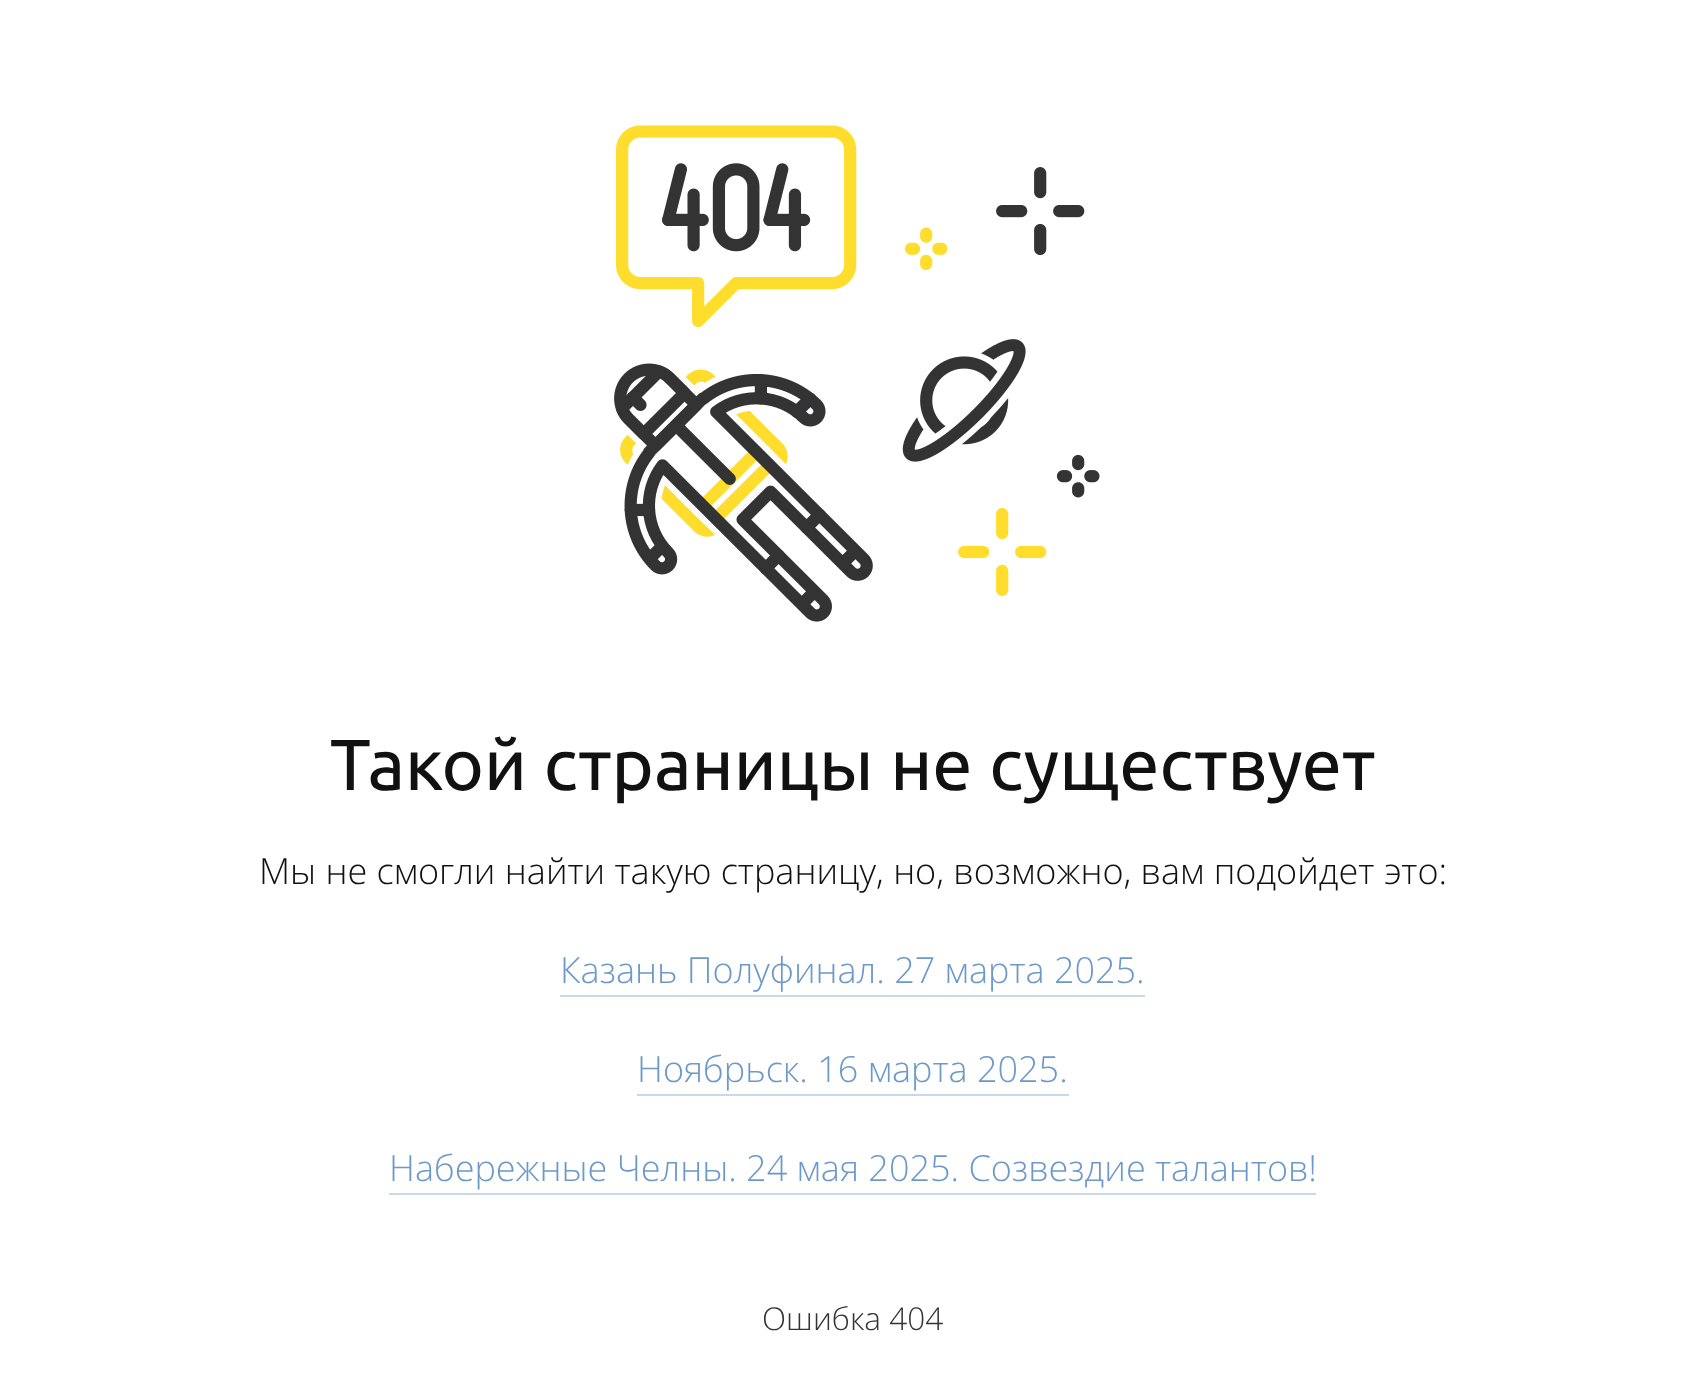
(async () => {
    const canvas = document.querySelector("canvas");
    canvas.width = 1704;
    canvas.height = 1385;
    const context = canvas.getContext("2d");
    context.miterLimit = 4;
    context.fontKerning = "normal";
    function write(s, x, y, font, color) {
        context.font = font;
        context.fillStyle = color;
        context.fillText(s, x, y);
    }
    function block(x, y, w, h, color) {
        context.fillStyle = color;
        context.fillRect(x, y, w, h);
    }
    async function photo(src, x, y, w, h) {
        const img = new Image();
        img.src = src;
        await img.decode();
        context.drawImage(img, x, y, w, h);
    }

    block(0, 0, 1704, 1385, "rgb(255, 255, 255)");
    await photo("media/1.png", 614, 125, 486, 497);
    write("Такой страницы не существует", 330, 790, "72px Ubuntu", "rgb(17, 17, 17)");
    write("Мы не смогли найти такую страницу, но, возможно, вам подойдет это:", 259, 884, "300 36px Open Sans", "rgb(17, 17, 17)");
    write("Казань Полуфинал. 27 марта 2025.", 560, 983, "300 36px Open Sans", "rgb(108, 153, 201)");
    block(560, 995, 585, 2, "rgb(200, 217, 235)");
    write("Ноябрьск. 16 марта 2025.", 637, 1082, "300 36px Open Sans", "rgb(108, 153, 201)");
    block(637, 1094, 432, 2, "rgb(200, 217, 235)");
    write("Набережные Челны. 24 мая 2025. Созвездие талантов!", 389, 1181, "300 36px Open Sans", "rgb(108, 153, 201)");
    block(389, 1193, 927, 2, "rgb(200, 217, 235)");
    write("Ошибка 404", 762, 1330, "300 31.5px Open Sans", "rgb(51, 51, 51)");
})();
